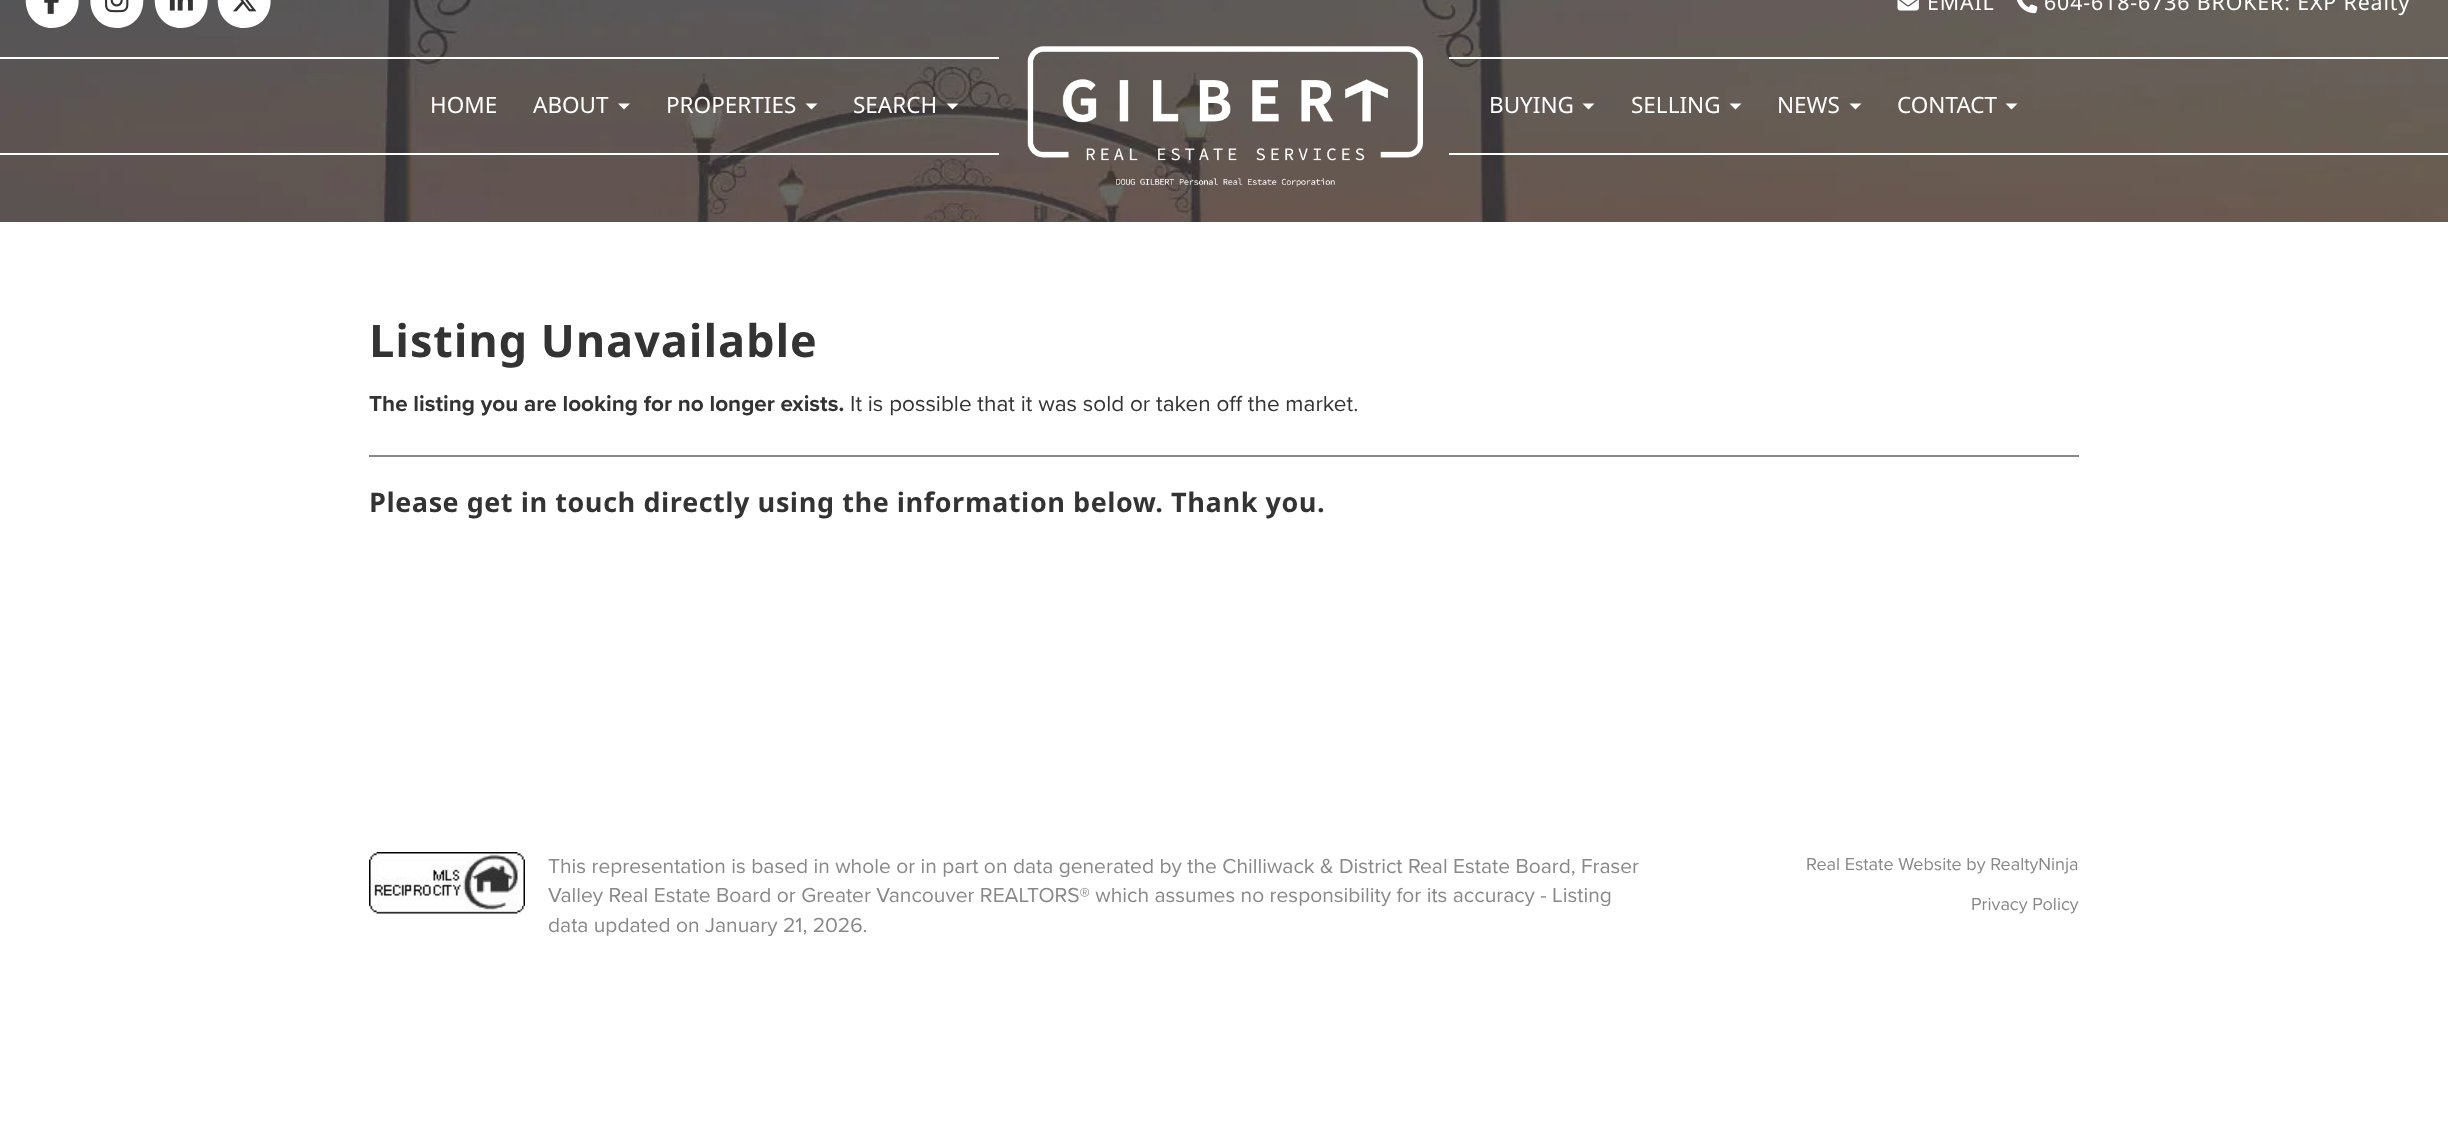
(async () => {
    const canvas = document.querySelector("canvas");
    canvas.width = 2448;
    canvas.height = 1135;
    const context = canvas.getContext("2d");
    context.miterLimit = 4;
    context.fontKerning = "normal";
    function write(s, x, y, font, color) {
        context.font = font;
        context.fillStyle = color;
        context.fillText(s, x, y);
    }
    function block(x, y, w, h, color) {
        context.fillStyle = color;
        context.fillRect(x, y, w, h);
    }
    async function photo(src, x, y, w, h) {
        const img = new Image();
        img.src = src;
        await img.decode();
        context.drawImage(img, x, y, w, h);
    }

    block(0, 0, 2448, 1135, "rgb(255, 255, 255)");
    await photo("media/1.png", 0, 0, 2448, 222);
    context.beginPath();
    context.moveTo(52, 28);
    context.bezierCurveTo(88, 27, 87, -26, 52, -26);
    context.bezierCurveTo(17, -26, 17, 27, 52, 28);
    context.closePath();
    context.fill();
    await photo("media/2.png", 44, 0, 15, 14);
    context.beginPath();
    context.moveTo(117, 28);
    context.bezierCurveTo(152, 27, 152, -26, 117, -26);
    context.bezierCurveTo(82, -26, 81, 27, 117, 28);
    context.closePath();
    context.fill();
    await photo("media/3.png", 105, 0, 24, 13);
    context.beginPath();
    context.moveTo(181, 28);
    context.bezierCurveTo(217, 27, 216, -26, 181, -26);
    context.bezierCurveTo(146, -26, 146, 27, 181, 28);
    context.closePath();
    context.fill();
    await photo("media/4.png", 169, 0, 24, 11);
    context.beginPath();
    context.moveTo(244, 28);
    context.bezierCurveTo(280, 27, 279, -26, 244, -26);
    context.bezierCurveTo(209, -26, 209, 27, 244, 28);
    context.closePath();
    context.fill();
    await photo("media/5.png", 233, 0, 24, 12);
    await photo("media/6.png", 1897, 0, 22, 11);
    context.letterSpacing = "0.85px";
    write("EMAIL", 1927, 10, "21.4px Noto Sans", "rgb(255, 255, 255)");
    await photo("media/7.png", 2016, 0, 22, 14);
    write("604-618-6736 BROKER: EXP Realty", 2044, 10, "21.4px Noto Sans", "rgb(255, 255, 255)");
    block(0, 57, 999, 2, "rgb(255, 255, 255)");
    block(0, 153, 999, 2, "rgb(255, 255, 255)");
    await photo("media/8.png", 1027, 46, 396, 141);
    block(1449, 57, 999, 2, "rgb(255, 255, 255)");
    block(1449, 153, 999, 2, "rgb(255, 255, 255)");
    context.letterSpacing = "0px";
    write("HOME", 430, 113, "22.5px Noto Sans", "rgb(255, 255, 255)");
    write("ABOUT", 533, 113, "22.5px Noto Sans", "rgb(255, 255, 255)");
    context.beginPath();
    context.moveTo(618, 103.5);
    context.lineTo(630, 103.5);
    context.lineTo(624, 109.5);
    context.closePath();
    context.fill();
    write("PROPERTIES", 666, 113, "22.5px Noto Sans", "rgb(255, 255, 255)");
    context.beginPath();
    context.moveTo(805.5, 103.5);
    context.lineTo(817.5, 103.5);
    context.lineTo(811.5, 109.5);
    context.closePath();
    context.fill();
    write("SEARCH", 853, 113, "22.5px Noto Sans", "rgb(255, 255, 255)");
    context.beginPath();
    context.moveTo(946.5, 103.5);
    context.lineTo(958.5, 103.5);
    context.lineTo(952.5, 109.5);
    context.closePath();
    context.fill();
    write("BUYING", 1489, 113, "22.5px Noto Sans", "rgb(255, 255, 255)");
    context.beginPath();
    context.moveTo(1582.5, 103.5);
    context.lineTo(1594.5, 103.5);
    context.lineTo(1588.5, 109.5);
    context.closePath();
    context.fill();
    write("SELLING", 1631, 113, "22.5px Noto Sans", "rgb(255, 255, 255)");
    context.beginPath();
    context.moveTo(1729.5, 103.5);
    context.lineTo(1741.5, 103.5);
    context.lineTo(1735.5, 109.5);
    context.closePath();
    context.fill();
    write("NEWS", 1777, 113, "22.5px Noto Sans", "rgb(255, 255, 255)");
    context.beginPath();
    context.moveTo(1849.5, 103.5);
    context.lineTo(1861.5, 103.5);
    context.lineTo(1855.5, 109.5);
    context.closePath();
    context.fill();
    write("CONTACT", 1897, 113, "22.5px Noto Sans", "rgb(255, 255, 255)");
    context.beginPath();
    context.moveTo(2005.5, 103.5);
    context.lineTo(2017.5, 103.5);
    context.lineTo(2011.5, 109.5);
    context.closePath();
    context.fill();
    context.letterSpacing = "0.9px";
    write("Listing Unavailable", 369, 357, "bold 45px Noto Sans", "rgb(51, 51, 51)");
    context.letterSpacing = "0px";
    write("The listing you are looking for no longer exists.", 369, 411, "bold 22.5px Proxima Nova", "rgb(51, 51, 51)");
    write("It is possible that it was sold or taken off the market.", 850, 411, "22.5px Proxima Nova", "rgb(51, 51, 51)");
    block(369, 455, 1710, 2, "rgb(136, 136, 136)");
    context.letterSpacing = "0.55px";
    write("Please get in touch directly using the information below. Thank you.", 369, 512, "bold 27px Noto Sans", "rgb(51, 51, 51)");
    await photo("media/9.png", 369, 852, 156, 62);
    context.letterSpacing = "0px";
    write("This representation is based in whole or in part on data generated by the Chilliwack & District Real Estate Board, Fraser", 548, 873, "21px Proxima Nova", "rgb(136, 136, 136)");
    write("Valley Real Estate Board or Greater Vancouver REALTORS® which assumes no responsibility for its accuracy - Listing", 548, 902, "21px Proxima Nova", "rgb(136, 136, 136)");
    write("data updated on January 21, 2026.", 548, 932, "21px Proxima Nova", "rgb(136, 136, 136)");
    write("Real Estate Website by RealtyNinja", 1806, 870, "18px Proxima Nova", "rgb(136, 136, 136)");
    write("Privacy Policy", 1971, 910, "18px Proxima Nova", "rgb(136, 136, 136)");
})();
